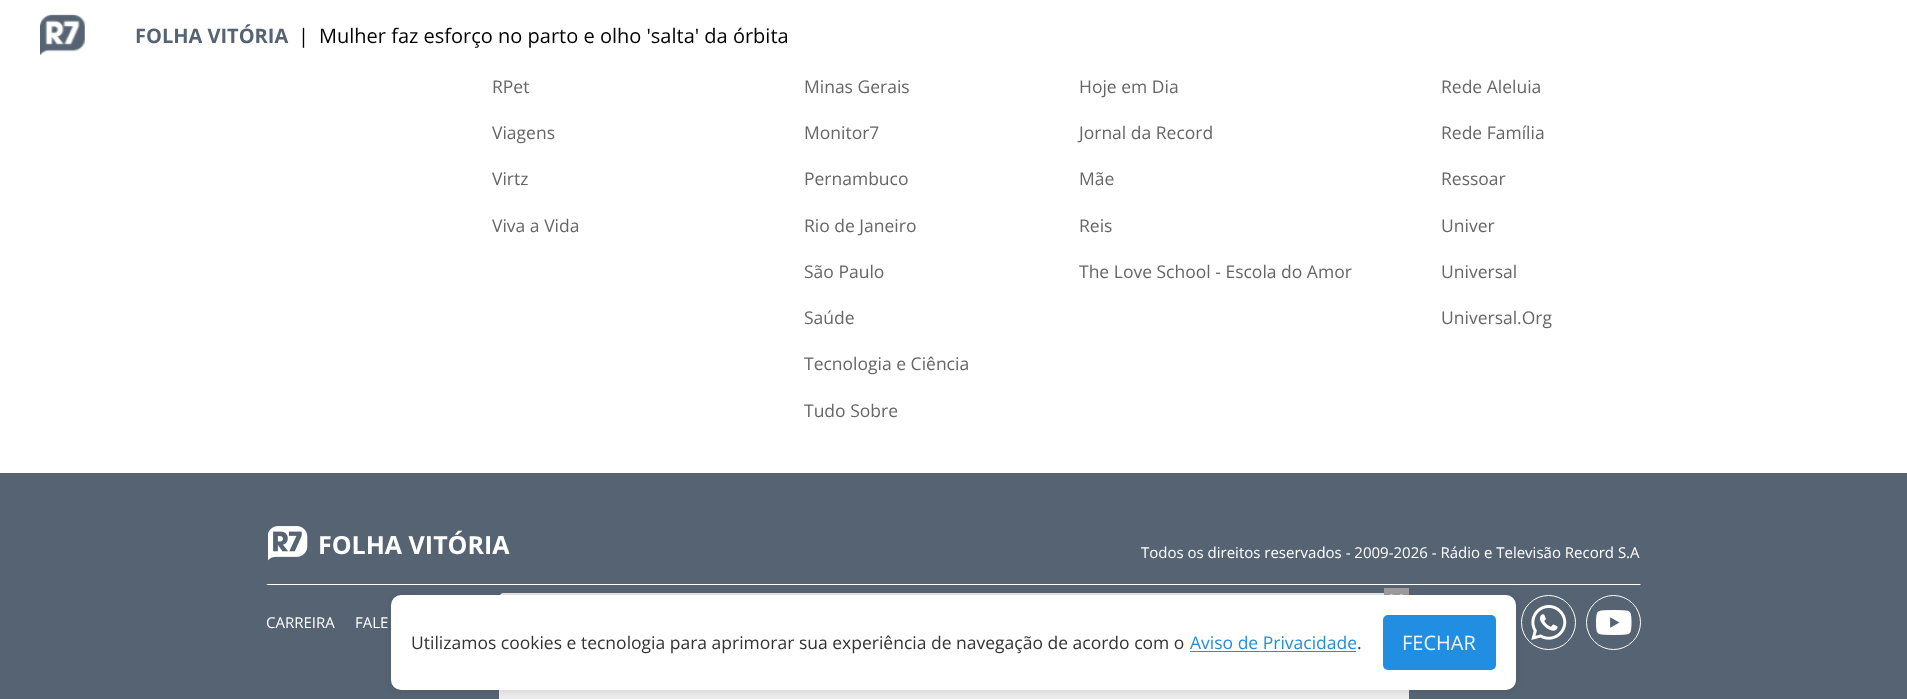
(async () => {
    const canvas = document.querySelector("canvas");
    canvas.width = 1907;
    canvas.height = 699;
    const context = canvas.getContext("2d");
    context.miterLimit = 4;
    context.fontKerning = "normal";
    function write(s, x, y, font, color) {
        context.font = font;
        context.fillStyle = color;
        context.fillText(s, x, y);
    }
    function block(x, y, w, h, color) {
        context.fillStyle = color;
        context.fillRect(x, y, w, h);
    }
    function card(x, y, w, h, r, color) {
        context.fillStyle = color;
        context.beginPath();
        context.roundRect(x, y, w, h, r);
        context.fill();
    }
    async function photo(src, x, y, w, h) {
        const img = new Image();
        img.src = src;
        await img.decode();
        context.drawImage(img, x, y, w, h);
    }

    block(0, 0, 1907, 699, "rgb(255, 255, 255)");
    await photo("media/1.png", 40, 14, 45, 42);
    write("FOLHA VITÓRIA", 135, 43, "bold 20px Open Sans", "rgb(85, 99, 115)");
    write("|", 298, 43, "20px Open Sans", "rgb(0, 0, 0)");
    write("Mulher faz esforço no parto e olho 'salta' da órbita", 319, 43, "20px Open Sans", "rgb(0, 0, 0)");
    write("RPet", 492, 93, "17.5px Open Sans", "rgb(102, 102, 102)");
    write("Viagens", 492, 139, "17.5px Open Sans", "rgb(102, 102, 102)");
    write("Virtz", 492, 185, "17.5px Open Sans", "rgb(102, 102, 102)");
    write("Viva a Vida", 492, 232, "17.5px Open Sans", "rgb(102, 102, 102)");
    write("Minas Gerais", 804, 93, "17.5px Open Sans", "rgb(102, 102, 102)");
    write("Monitor7", 804, 139, "17.5px Open Sans", "rgb(102, 102, 102)");
    write("Pernambuco", 804, 185, "17.5px Open Sans", "rgb(102, 102, 102)");
    write("Rio de Janeiro", 804, 232, "17.5px Open Sans", "rgb(102, 102, 102)");
    write("São Paulo", 804, 278, "17.5px Open Sans", "rgb(102, 102, 102)");
    write("Saúde", 804, 324, "17.5px Open Sans", "rgb(102, 102, 102)");
    write("Tecnologia e Ciência", 804, 370, "17.5px Open Sans", "rgb(102, 102, 102)");
    write("Tudo Sobre", 804, 417, "17.5px Open Sans", "rgb(102, 102, 102)");
    write("Hoje em Dia", 1079, 93, "17.5px Open Sans", "rgb(102, 102, 102)");
    write("Jornal da Record", 1079, 139, "17.5px Open Sans", "rgb(102, 102, 102)");
    write("Mãe", 1079, 185, "17.5px Open Sans", "rgb(102, 102, 102)");
    write("Reis", 1079, 232, "17.5px Open Sans", "rgb(102, 102, 102)");
    write("The Love School - Escola do Amor", 1079, 278, "17.5px Open Sans", "rgb(102, 102, 102)");
    write("Rede Aleluia", 1441, 93, "17.5px Open Sans", "rgb(102, 102, 102)");
    write("Rede Família", 1441, 139, "17.5px Open Sans", "rgb(102, 102, 102)");
    write("Ressoar", 1441, 185, "17.5px Open Sans", "rgb(102, 102, 102)");
    write("Univer", 1441, 232, "17.5px Open Sans", "rgb(102, 102, 102)");
    write("Universal", 1441, 278, "17.5px Open Sans", "rgb(102, 102, 102)");
    write("Universal.Org", 1441, 324, "17.5px Open Sans", "rgb(102, 102, 102)");
    block(0, 473, 1907, 226, "rgb(85, 99, 115)");
    context.fillStyle = "rgb(255, 255, 255)";
    context.beginPath();
    context.moveTo(1641, 585);
    context.lineTo(266, 585);
    context.lineTo(268, 584);
    context.lineTo(1640, 584);
    context.closePath();
    context.fill();
    await photo("media/2.png", 268, 526, 40, 35);
    write("FOLHA VITÓRIA", 318, 554, "bold 25px Open Sans", "rgb(255, 255, 255)");
    write("Todos os direitos reservados - 2009-2026 - Rádio e Televisão Record S.A", 1141, 558, "15px Open Sans", "rgb(255, 255, 255)");
    write("CARREIRA", 266, 628, "15px Open Sans", "rgb(255, 255, 255)");
    write("FALE", 355, 628, "15px Open Sans", "rgb(255, 255, 255)");
    context.beginPath();
    context.arc(1548.5, 622.5, 27, 0, Math.PI * 2);
    context.strokeStyle = "rgb(255, 255, 255)";
    context.stroke();
    await photo("media/3.png", 1531, 605, 36, 35);
    context.beginPath();
    context.arc(1613.5, 622.5, 27, 0, Math.PI * 2);
    context.stroke();
    await photo("media/4.png", 1596, 610, 36, 25);
    context.fillStyle = "rgb(235, 235, 235)";
    context.beginPath();
    context.moveTo(504, 593);
    context.lineTo(1404, 593);
    context.bezierCurveTo(1407, 593, 1409, 595, 1409, 598);
    context.lineTo(1409, 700);
    context.lineTo(499, 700);
    context.lineTo(499, 598);
    context.bezierCurveTo(499, 595, 501, 593, 504, 593);
    context.closePath();
    context.fill();
    block(1384, 588, 25, 7, "rgb(157, 157, 157)");
    await photo("media/5.png", 1390, 593, 13, 2);
    context.fillStyle = "rgba(51, 51, 51, 0.08)";
    context.filter = "blur(2px)";
    context.beginPath();
    context.roundRect(389, 593, 1130, 100, 13);
    context.fill();
    context.filter = "none";
    card(391, 595, 1125, 95, 10, "rgb(255, 255, 255)");
    write("Utilizamos cookies e tecnologia para aprimorar sua experiência de navegação de acordo com o", 411, 649, "17.5px Open Sans", "rgb(51, 51, 51)");
    write("Aviso de Privacidade", 1190, 649, "17.5px Open Sans", "rgb(33, 142, 225)");
    block(1190, 651, 166, 1, "rgb(33, 142, 225)");
    write(".", 1357, 649, "17.5px Open Sans", "rgb(51, 51, 51)");
    card(1383, 615, 113, 55, 5, "rgb(33, 142, 225)");
    write("FECHAR", 1402, 650, "20px Open Sans", "rgb(240, 242, 243)");
})();
